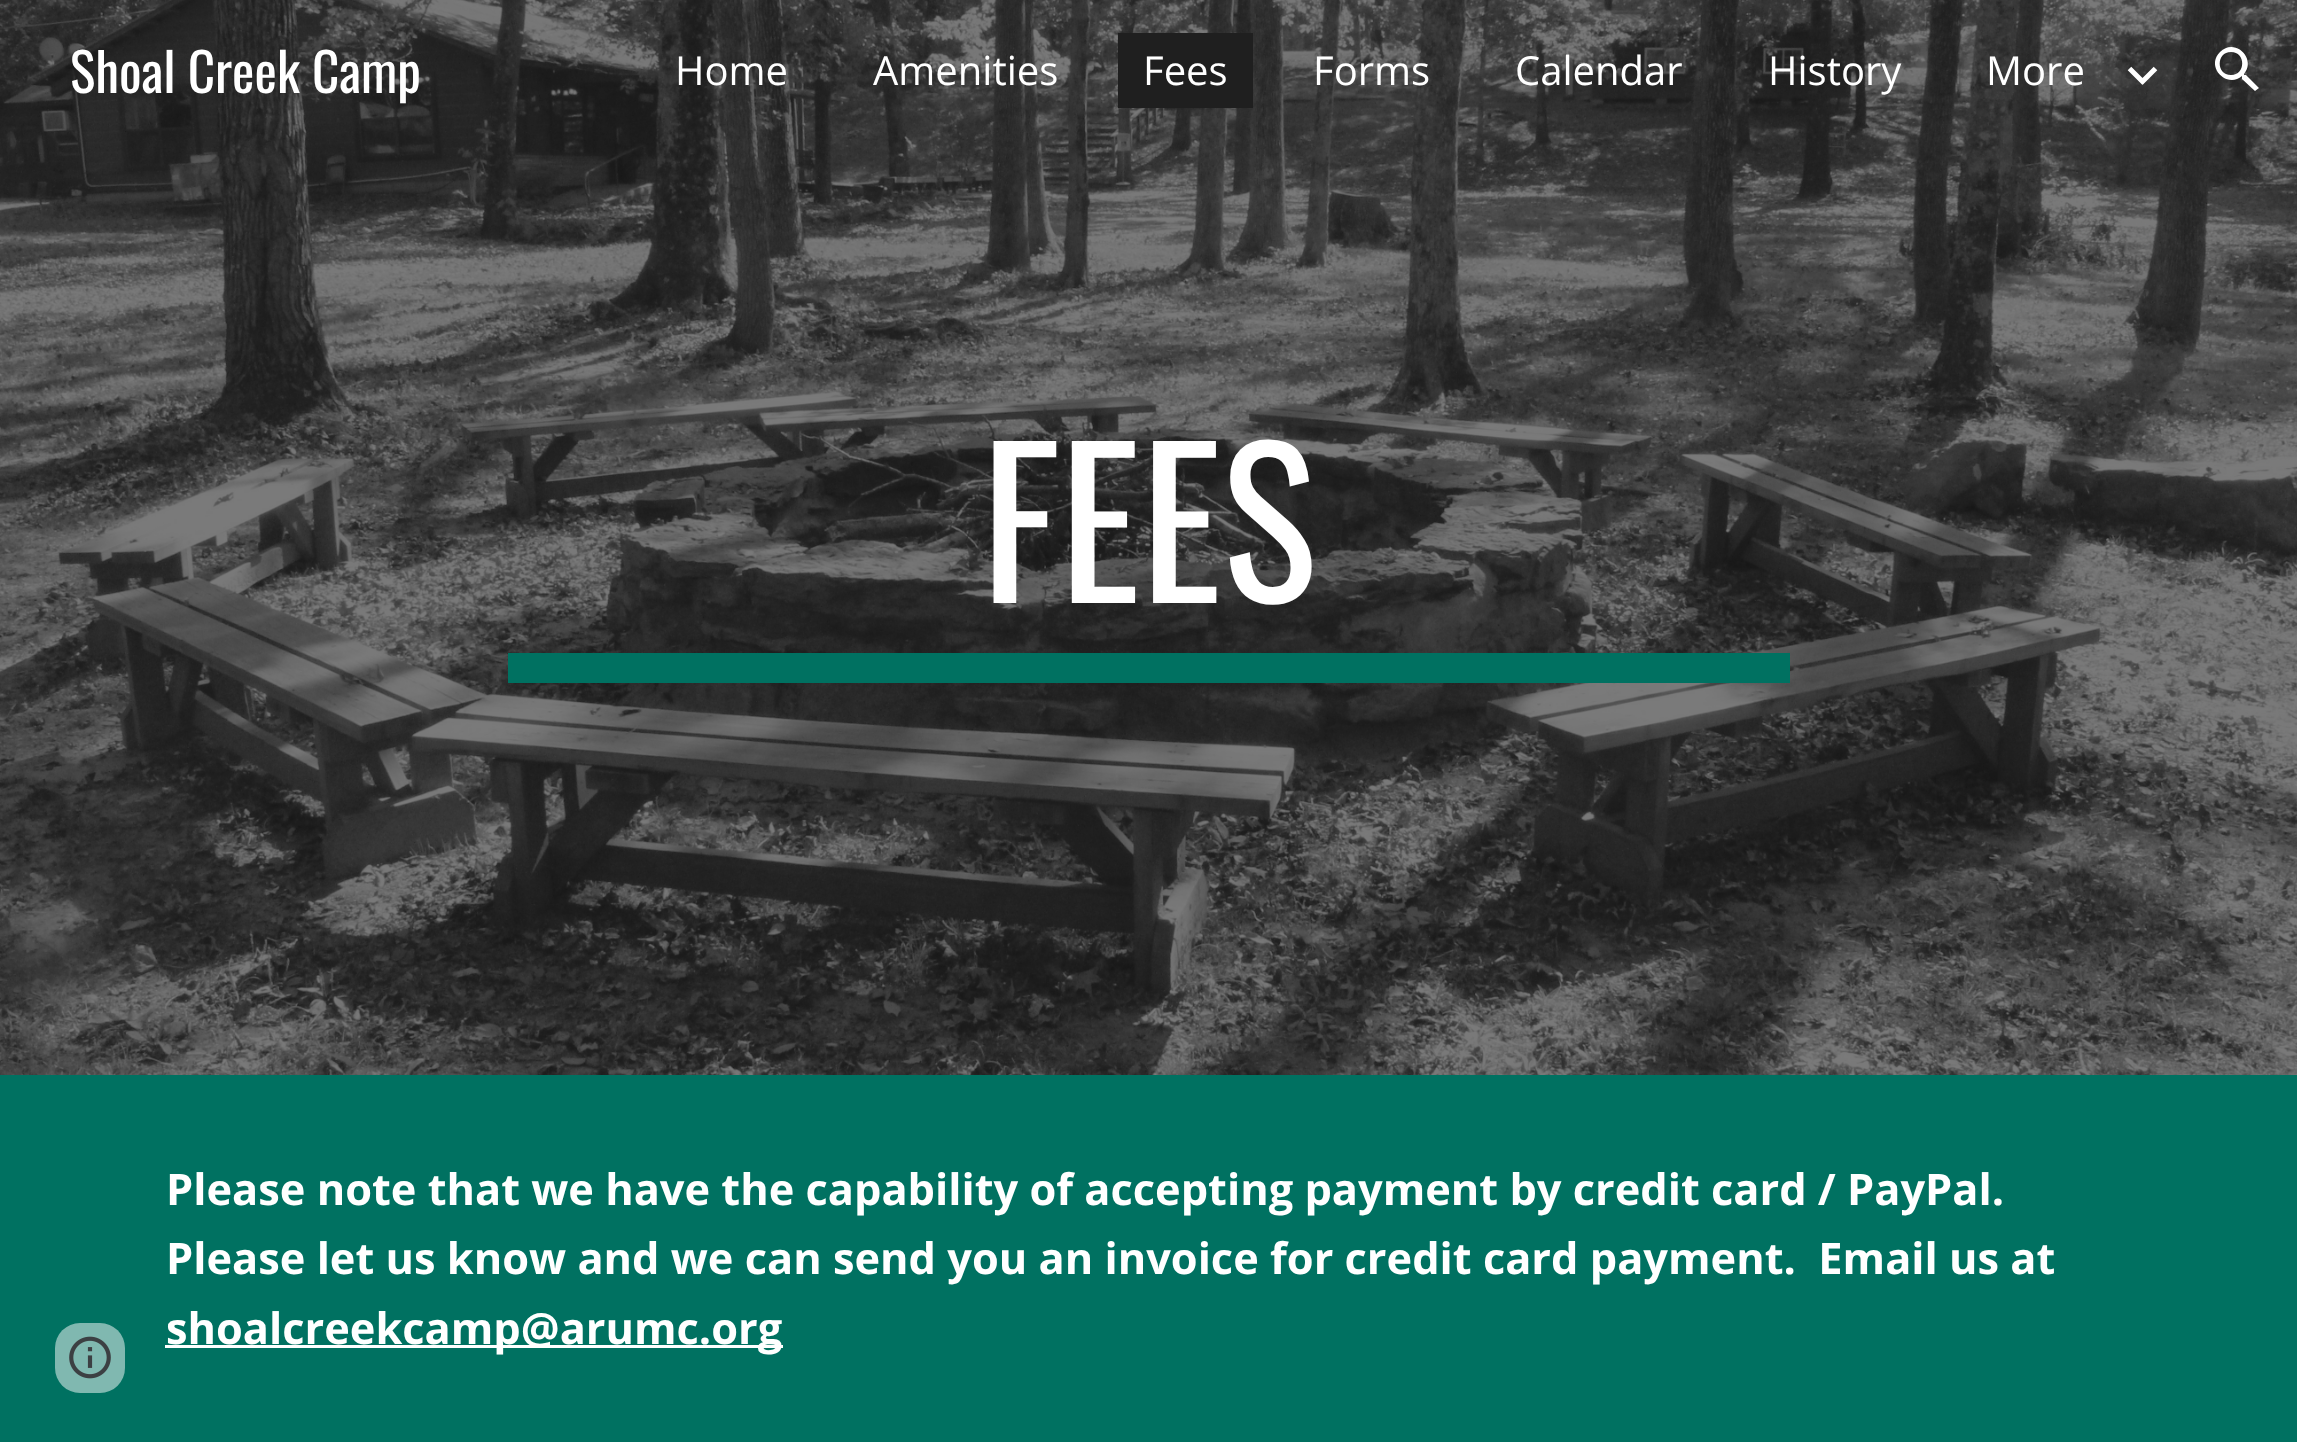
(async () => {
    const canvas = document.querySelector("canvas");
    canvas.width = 2297;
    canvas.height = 1442;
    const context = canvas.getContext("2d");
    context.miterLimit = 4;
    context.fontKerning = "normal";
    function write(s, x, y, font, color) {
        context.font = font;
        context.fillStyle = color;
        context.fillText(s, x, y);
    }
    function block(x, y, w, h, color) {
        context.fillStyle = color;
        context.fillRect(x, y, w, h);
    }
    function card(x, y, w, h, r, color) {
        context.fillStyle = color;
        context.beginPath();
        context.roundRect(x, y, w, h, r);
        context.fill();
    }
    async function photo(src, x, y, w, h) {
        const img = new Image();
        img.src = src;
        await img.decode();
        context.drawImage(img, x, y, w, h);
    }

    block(0, 0, 2297, 1442, "rgb(255, 255, 255)");
    await photo("media/2.png", 0, 0, 2297, 1075);
    write("Shoal Creek Camp", 70, 93, "53.25px Oswald", "rgb(255, 255, 255)");
    write("Home", 675, 85, "40px Open Sans", "rgb(255, 255, 255)");
    write("Amenities", 873, 85, "40px Open Sans", "rgb(255, 255, 255)");
    block(1118, 33, 135, 75, "rgb(31, 31, 31)");
    write("Fees", 1143, 85, "40px Open Sans", "rgb(255, 255, 255)");
    write("Forms", 1313, 85, "40px Open Sans", "rgb(255, 255, 255)");
    write("Calendar", 1515, 85, "40px Open Sans", "rgb(255, 255, 255)");
    write("History", 1768, 85, "40px Open Sans", "rgb(255, 255, 255)");
    write("More", 1986, 85, "40px Open Sans", "rgb(255, 255, 255)");
    context.beginPath();
    context.moveTo(2129.5, 68.5);
    context.lineTo(2144, 83);
    context.moveTo(2141, 83);
    context.lineTo(2155.5, 68.5);
    context.strokeStyle = "rgb(255, 255, 255)";
    context.lineWidth = 5;
    context.stroke();
    context.beginPath();
    context.moveTo(2246, 75);
    context.lineTo(2244, 75);
    context.lineTo(2244, 74);
    context.bezierCurveTo(2257, 59, 2235, 37, 2220, 52);
    context.bezierCurveTo(2205, 67, 2227, 89, 2242, 76);
    context.lineTo(2242, 77);
    context.lineTo(2242, 79);
    context.lineTo(2255, 91);
    context.lineTo(2259, 88);
    context.closePath();
    context.moveTo(2231, 75);
    context.bezierCurveTo(2216, 75, 2216, 52, 2231, 52);
    context.bezierCurveTo(2246, 52, 2246, 75, 2231, 75);
    context.closePath();
    context.fill();
    block(0, 1075, 2297, 367, "rgb(0, 113, 97)");
    card(55, 1323, 70, 70, 25, "rgb(128, 184, 176)");
    await photo("media/1.png", 69, 1336, 42, 43);
    write("FEES", 981, 603, "200px Oswald", "rgb(255, 255, 255)");
    block(508, 653, 1282, 30, "rgb(0, 113, 97)");
    write("Please note that we have the capability of accepting payment by credit card / PayPal.", 166, 1205, "bold 43.35px Open Sans", "rgb(255, 255, 255)");
    write("Please let us know and we can send you an invoice for credit card payment.  Email us at", 166, 1274, "bold 43.35px Open Sans", "rgb(255, 255, 255)");
    block(165, 1345, 618, 3, "rgb(255, 255, 255)");
    write("shoalcreekcamp@arumc.org", 166, 1344, "bold 43.35px Open Sans", "rgb(255, 255, 255)");
})();
